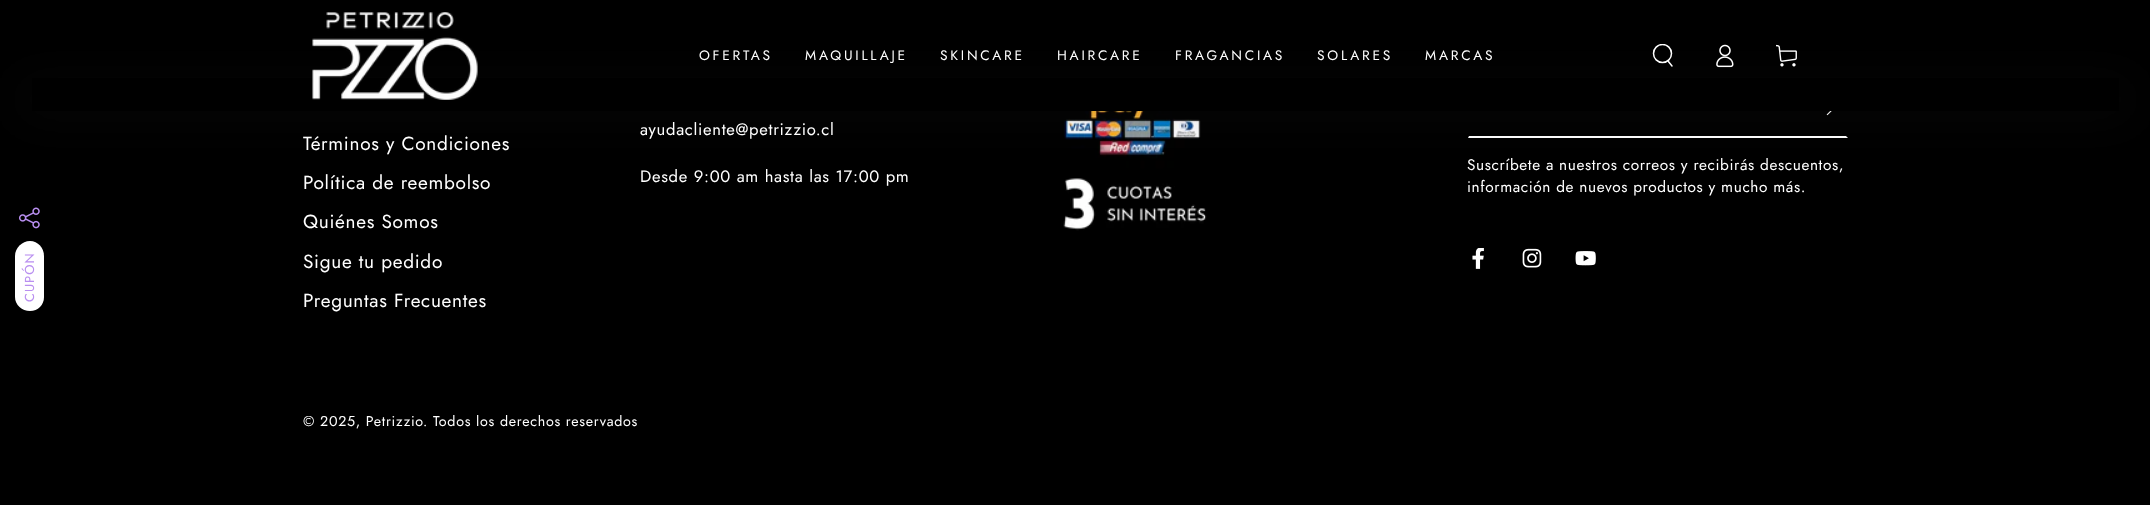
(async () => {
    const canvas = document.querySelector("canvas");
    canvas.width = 2150;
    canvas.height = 505;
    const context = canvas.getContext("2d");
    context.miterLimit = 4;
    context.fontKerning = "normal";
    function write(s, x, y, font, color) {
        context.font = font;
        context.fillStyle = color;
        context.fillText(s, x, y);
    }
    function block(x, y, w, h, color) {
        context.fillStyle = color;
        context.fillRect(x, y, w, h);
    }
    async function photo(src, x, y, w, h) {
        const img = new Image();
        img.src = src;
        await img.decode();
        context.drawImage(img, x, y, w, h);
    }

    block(0, 0, 2150, 505, "rgb(0, 0, 0)");
    await photo("media/1.png", 19, 207, 21, 22);
    context.fillStyle = "rgb(255, 255, 255)";
    context.beginPath();
    context.moveTo(30, 311);
    context.bezierCurveTo(22, 311, 15, 305, 15, 297);
    context.lineTo(15, 256);
    context.bezierCurveTo(15, 248, 22, 241, 30, 241);
    context.bezierCurveTo(38, 241, 44, 248, 44, 256);
    context.lineTo(44, 297);
    context.bezierCurveTo(44, 305, 38, 311, 30, 311);
    context.closePath();
    context.fill();
    context.letterSpacing = "1px";
    context.font = "13px Jost";
    context.fillStyle = "rgb(185, 143, 240)";
    context.save();
    context.translate(34, 302);
    context.rotate(-90 * Math.PI / 180);
    context.fillText("CUPÓN", 0, 0);
    context.restore();
    await photo("media/5.png", 1061, 111, 146, 120);
    await photo("media/6.png", 1826, 111, 6, 5);
    context.fillStyle = "rgb(255, 255, 255)";
    context.beginPath();
    context.moveTo(1848, 138);
    context.lineTo(1468, 138);
    context.lineTo(1469, 136);
    context.lineTo(1846, 136);
    context.closePath();
    context.fill();
    context.fillStyle = "rgba(52, 52, 52, 0.2)";
    context.filter = "blur(24px)";
    context.beginPath();
    context.roundRect(18, 88, 2115, 23, 11.5);
    context.fill();
    context.filter = "none";
    block(32, 78, 2087, 33, "rgb(0, 0, 0)");
    await photo("media/2.png", 312, 12, 166, 88);
    context.letterSpacing = "2.75px";
    write("OFERTAS", 699, 60, "13.75px Jost", "rgb(255, 255, 255)");
    write("MAQUILLAJE", 805, 60, "13.75px Jost", "rgb(255, 255, 255)");
    write("SKINCARE", 940, 60, "13.75px Jost", "rgb(255, 255, 255)");
    write("HAIRCARE", 1057, 60, "13.75px Jost", "rgb(255, 255, 255)");
    write("FRAGANCIAS", 1175, 60, "13.75px Jost", "rgb(255, 255, 255)");
    write("SOLARES", 1317, 60, "13.75px Jost", "rgb(255, 255, 255)");
    write("MARCAS", 1425, 60, "13.75px Jost", "rgb(255, 255, 255)");
    context.save();
    context.beginPath();
    context.rect(1651, 44, 24, 24);
    context.clip();
    context.beginPath();
    context.arc(1662.5, 53.5, 9, 0, Math.PI * 2);
    context.strokeStyle = "rgb(255, 255, 255)";
    context.lineWidth = 1.5;
    context.stroke();
    context.restore();
    context.beginPath();
    context.moveTo(1668, 61);
    context.lineTo(1672, 66);
    context.strokeStyle = "rgb(255, 255, 255)";
    context.lineWidth = 1.5;
    context.lineCap = "round";
    context.stroke();
    await photo("media/3.png", 1716, 44, 18, 24);
    await photo("media/4.png", 1776, 44, 21, 23);
    context.letterSpacing = "0.7px";
    write("Términos y Condiciones", 303, 150, "19px Jost", "rgb(255, 255, 255)");
    write("Política de reembolso", 303, 189, "19px Jost", "rgb(255, 255, 255)");
    write("Quiénes Somos", 303, 228, "19px Jost", "rgb(255, 255, 255)");
    write("Sigue tu pedido", 303, 268, "19px Jost", "rgb(255, 255, 255)");
    write("Preguntas Frecuentes", 303, 307, "19px Jost", "rgb(255, 255, 255)");
    write("ayudacliente@petrizzio.cl", 640, 135, "16.6px Jost", "rgb(255, 255, 255)");
    write("Desde 9:00 am hasta las 17:00 pm", 640, 182, "16.6px Jost", "rgb(255, 255, 255)");
    context.letterSpacing = "0.6px";
    write("Suscríbete a nuestros correos y recibirás descuentos,", 1467, 170, "15.4px Jost", "rgb(255, 255, 255)");
    write("información de nuevos productos y mucho más.", 1467, 192, "15.4px Jost", "rgb(255, 255, 255)");
    await photo("media/7.png", 1472, 248, 12, 21);
    await photo("media/8.png", 1522, 248, 20, 20);
    await photo("media/9.png", 1575, 251, 21, 15);
    context.letterSpacing = "0.7px";
    write("© 2025, Petrizzio", 303, 426, "14.25px Jost", "rgb(255, 255, 255)");
    write(". Todos los derechos reservados", 423, 426, "14.25px Jost", "rgb(255, 255, 255)");
})();
